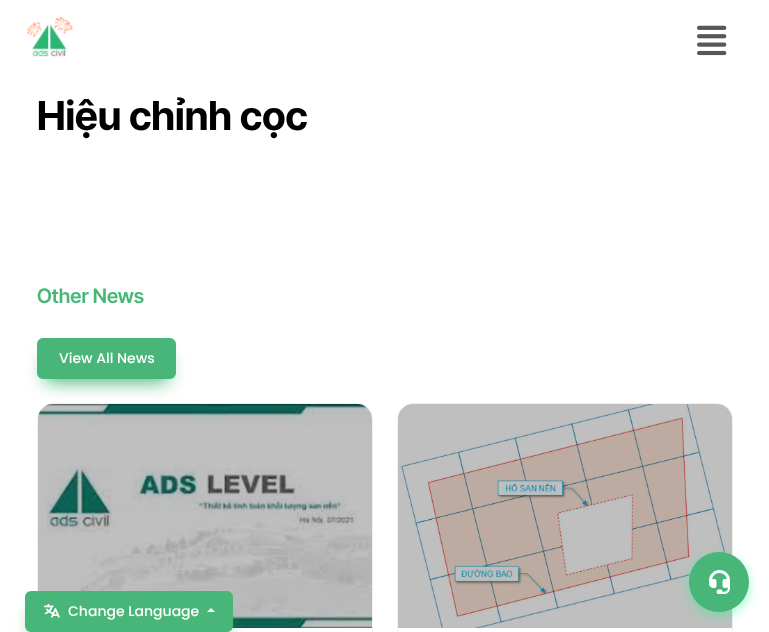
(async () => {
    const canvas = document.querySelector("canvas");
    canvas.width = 769;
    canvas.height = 632;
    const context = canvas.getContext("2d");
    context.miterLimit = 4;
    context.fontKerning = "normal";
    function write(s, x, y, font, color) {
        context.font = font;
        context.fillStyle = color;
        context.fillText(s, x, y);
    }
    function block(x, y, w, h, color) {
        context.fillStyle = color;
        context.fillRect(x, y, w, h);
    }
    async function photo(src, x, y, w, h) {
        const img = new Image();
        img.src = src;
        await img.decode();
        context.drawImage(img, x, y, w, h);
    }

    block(0, 0, 769, 632, "rgb(255, 255, 255)");
    await photo("media/1.png", 26, 16, 47, 41);
    await photo("media/2.png", 697, 25, 30, 31);
    write("Hiệu chỉnh cọc", 37, 130, "bold 40px Inter Tight", "rgb(0, 0, 0)");
    write("Other News", 37, 303, "600 20px Inter Tight", "rgb(72, 182, 121)");
    context.filter = "blur(9px)";
    context.beginPath();
    context.rect(45, 357, 123, 25);
    context.fill();
    context.filter = "none";
    context.beginPath();
    context.roundRect(38, 339, 137, 39, 5);
    context.fill();
    context.strokeStyle = "rgb(72, 182, 121)";
    context.lineWidth = 2;
    context.stroke();
    write("View All News", 59, 363, "500 14px Poppins", "rgb(255, 255, 255)");
    context.beginPath();
    context.roundRect(37.5, 403.5, 335, 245, 15.5);
    context.strokeStyle = "rgb(241, 241, 241)";
    context.lineWidth = 1;
    context.stroke();
    await photo("media/3.png", 38, 404, 334, 224);
    context.fillStyle = "rgba(0, 0, 0, 0.25)";
    context.beginPath();
    context.roundRect(38, 404, 334, 224, [15, 15, 0, 0]);
    context.fill();
    context.beginPath();
    context.roundRect(397.5, 403.5, 335, 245, 15.5);
    context.stroke();
    await photo("media/4.png", 399, 404, 332, 224);
    context.beginPath();
    context.roundRect(398, 404, 334, 224, [15, 15, 0, 0]);
    context.fill();
    context.fillStyle = "rgb(72, 182, 121)";
    context.filter = "blur(9px)";
    context.beginPath();
    context.rect(33, 610, 192, 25);
    context.fill();
    context.filter = "none";
    context.beginPath();
    context.roundRect(26, 592, 206, 39, 5);
    context.fill();
    context.strokeStyle = "rgb(72, 182, 121)";
    context.lineWidth = 2;
    context.stroke();
    await photo("media/5.png", 44, 603, 16, 15);
    write("Change Language", 68, 616, "500 14px Poppins", "rgb(255, 255, 255)");
    context.beginPath();
    context.moveTo(215, 612);
    context.lineTo(207, 612);
    context.lineTo(211, 608);
    context.closePath();
    context.fill();
    context.fillStyle = "rgba(13, 253, 129, 0.4)";
    context.filter = "blur(6px)";
    context.beginPath();
    context.roundRect(689, 556, 60, 60, 30);
    context.fill();
    context.filter = "none";
    context.fillStyle = "rgb(72, 182, 121)";
    context.beginPath();
    context.arc(719, 582, 30, 0, Math.PI * 2);
    context.fill();
    await photo("media/6.png", 709, 570, 21, 24);
})();
